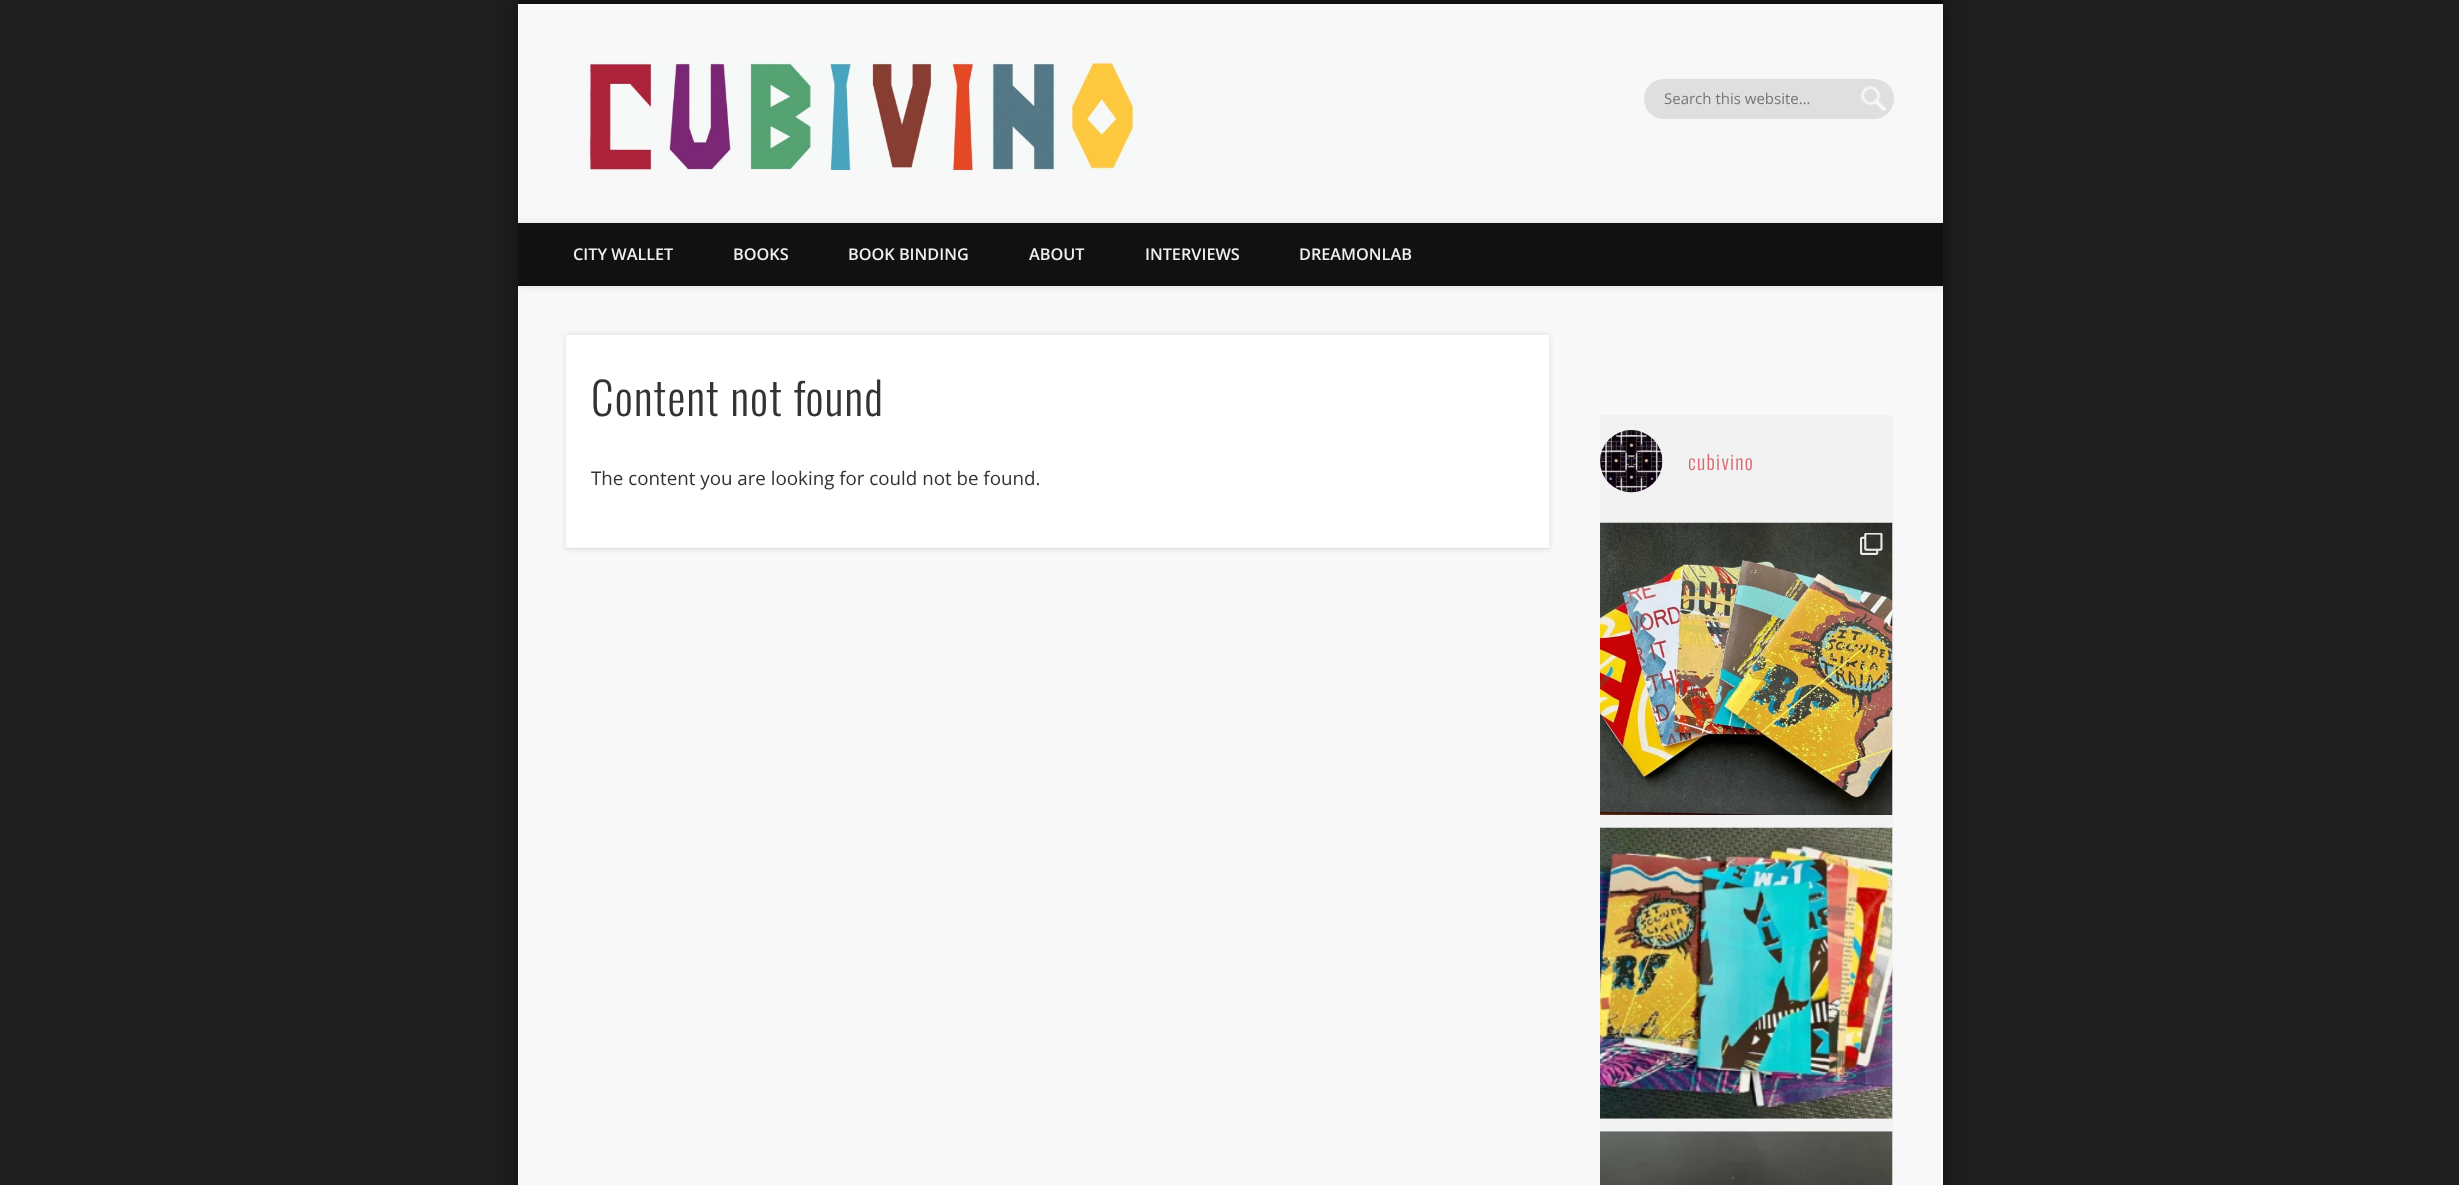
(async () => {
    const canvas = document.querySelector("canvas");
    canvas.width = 2459;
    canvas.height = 1185;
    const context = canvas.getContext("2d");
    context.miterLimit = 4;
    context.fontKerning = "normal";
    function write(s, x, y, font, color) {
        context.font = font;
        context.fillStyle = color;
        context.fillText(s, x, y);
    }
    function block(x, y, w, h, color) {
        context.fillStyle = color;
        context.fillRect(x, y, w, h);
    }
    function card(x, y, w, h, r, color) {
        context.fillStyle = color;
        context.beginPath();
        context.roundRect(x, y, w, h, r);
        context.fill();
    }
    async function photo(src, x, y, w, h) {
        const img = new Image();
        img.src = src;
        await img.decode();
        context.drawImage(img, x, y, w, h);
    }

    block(0, 0, 2459, 1185, "rgb(30, 30, 30)");
    context.fillStyle = "rgba(0, 0, 0, 0.4)";
    context.filter = "blur(11px)";
    context.beginPath();
    context.rect(518, 0, 1425, 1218);
    context.fill();
    context.filter = "none";
    block(518, 4, 1425, 1181, "rgb(248, 248, 248)");
    block(518, 0, 1425, 4, "rgb(17, 17, 17)");
    await photo("media/1.png", 586, 61, 550, 111);
    card(1644, 79, 250, 40, 20, "rgb(223, 223, 223)");
    await photo("media/2.png", 1861, 86, 26, 25);
    write("Search this website…", 1664, 104, "15px Open Sans", "rgb(117, 117, 117)");
    context.save();
    context.beginPath();
    context.rect(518, 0, 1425, 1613);
    context.clip();
    context.fillStyle = "rgba(0, 0, 0, 0.1)";
    context.filter = "blur(4.5px)";
    context.beginPath();
    context.rect(518, 223, 1425, 63);
    context.fill();
    context.filter = "none";
    context.restore();
    block(518, 223, 1425, 63, "rgb(17, 17, 17)");
    write("CITY WALLET", 573, 260, "600 16.25px Open Sans", "rgb(240, 240, 240)");
    write("BOOKS", 733, 260, "600 16.25px Open Sans", "rgb(240, 240, 240)");
    write("BOOK BINDING", 848, 260, "600 16.25px Open Sans", "rgb(240, 240, 240)");
    write("ABOUT", 1029, 260, "600 16.25px Open Sans", "rgb(240, 240, 240)");
    write("INTERVIEWS", 1145, 260, "600 16.25px Open Sans", "rgb(240, 240, 240)");
    write("DREAMONLAB", 1299, 260, "600 16.25px Open Sans", "rgb(240, 240, 240)");
    context.fillStyle = "rgba(0, 0, 0, 0.1)";
    context.filter = "blur(3px)";
    context.beginPath();
    context.rect(566, 335, 983, 214);
    context.fill();
    context.filter = "none";
    block(566, 335, 983, 213, "rgb(255, 255, 255)");
    block(566, 548, 983, 1, "rgb(222, 222, 222)");
    context.letterSpacing = "1.25px";
    write("Content not found", 591, 416, "300 45px Oswald", "rgb(51, 51, 51)");
    context.letterSpacing = "0px";
    write("The content you are looking for could not be found.", 591, 485, "18.75px Open Sans", "rgb(51, 51, 51)");
    block(1600, 415, 293, 770, "rgb(242, 242, 242)");
    await photo("media/3.png", 1600, 430, 63, 63);
    context.letterSpacing = "1.25px";
    write("cubivino", 1688, 470, "300 20px Oswald", "rgb(219, 105, 112)");
    await photo("media/4.png", 1600, 522, 293, 293);
    await photo("media/5.png", 1860, 533, 23, 22);
    await photo("media/6.png", 1600, 827, 293, 292);
    await photo("media/7.png", 1600, 1131, 293, 54);
})();
